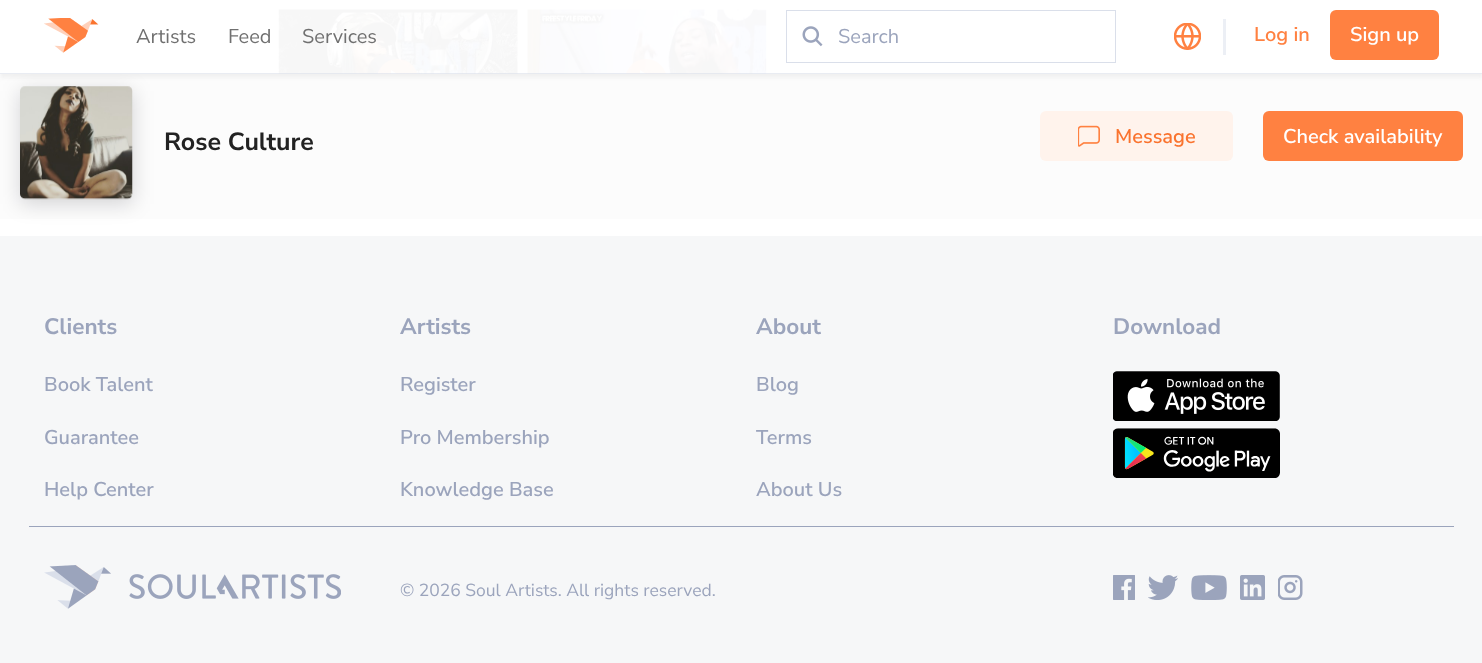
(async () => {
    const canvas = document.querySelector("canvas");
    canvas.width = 1482;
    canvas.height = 663;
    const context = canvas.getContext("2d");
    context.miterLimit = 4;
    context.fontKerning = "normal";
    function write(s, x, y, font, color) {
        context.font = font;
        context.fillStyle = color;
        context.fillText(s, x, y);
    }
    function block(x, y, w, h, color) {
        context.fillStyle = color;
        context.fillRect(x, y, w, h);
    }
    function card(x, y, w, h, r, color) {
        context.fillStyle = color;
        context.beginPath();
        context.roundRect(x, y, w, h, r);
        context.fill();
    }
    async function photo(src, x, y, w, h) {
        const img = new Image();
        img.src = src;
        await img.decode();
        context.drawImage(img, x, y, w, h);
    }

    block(0, 0, 1482, 663, "rgb(255, 255, 255)");
    await photo("media/4.png", 278, 9, 240, 65);
    context.fillStyle = "rgba(255, 129, 65, 0.8)";
    context.beginPath();
    context.arc(397.5, 80, 21, 0, Math.PI * 2);
    context.fill();
    context.fillStyle = "rgb(255, 255, 255)";
    context.beginPath();
    context.moveTo(391, 90);
    context.lineTo(391, 70);
    context.lineTo(406, 80);
    context.closePath();
    context.fill("evenodd");
    await photo("media/5.png", 527, 9, 240, 65);
    context.fillStyle = "rgba(255, 129, 65, 0.8)";
    context.beginPath();
    context.arc(646, 80, 21, 0, Math.PI * 2);
    context.fill();
    context.fillStyle = "rgb(255, 255, 255)";
    context.beginPath();
    context.moveTo(640, 90);
    context.lineTo(640, 70);
    context.lineTo(655, 80);
    context.closePath();
    context.fill("evenodd");
    block(0, 74, 1482, 145, "rgb(252, 252, 252)");
    context.save();
    context.beginPath();
    context.moveTo(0, 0);
    context.lineTo(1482, 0);
    context.lineTo(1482, 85);
    context.lineTo(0, 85);
    context.closePath();
    context.moveTo(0, 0);
    context.lineTo(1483, 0);
    context.lineTo(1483, 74);
    context.lineTo(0, 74);
    context.closePath();
    context.clip("evenodd");
    context.fillStyle = "rgba(147, 147, 147, 0.1)";
    context.filter = "blur(2px)";
    context.beginPath();
    context.rect(0, 4, 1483, 74);
    context.fill();
    context.filter = "none";
    context.restore();
    context.fillStyle = "rgba(2, 0, 12, 0.16)";
    context.filter = "blur(10px)";
    context.beginPath();
    context.rect(20, 91, 113, 113);
    context.fill();
    context.filter = "none";
    block(4, 9, 763, 65, "rgba(255, 255, 255, 0.97)");
    block(0, 73, 1482, 1, "rgba(218, 223, 234, 0.6)");
    await photo("media/1.png", 44, 18, 55, 35);
    write("Artists", 136, 43, "20px Nunito Sans", "rgb(112, 112, 112)");
    write("Feed", 228, 43, "20px Nunito Sans", "rgb(112, 112, 112)");
    write("Services", 302, 43, "20px Nunito Sans", "rgb(112, 112, 112)");
    await photo("media/2.png", 802, 26, 21, 21);
    context.strokeStyle = "rgb(218, 223, 234)";
    context.strokeRect(786.5, 10.5, 329, 52);
    write("Search", 838, 43, "20px Nunito Sans", "rgb(155, 164, 188)");
    await photo("media/3.png", 1174, 23, 27, 27);
    block(1223, 19, 3, 36, "rgb(236, 239, 245)");
    write("Log in", 1254, 41, "600 20px Nunito Sans", "rgb(255, 129, 65)");
    card(1330, 10, 109, 50, 6, "rgb(255, 129, 65)");
    write("Sign up", 1350, 41, "600 20px Nunito Sans", "rgb(255, 255, 255)");
    await photo("media/6.png", 20, 86, 113, 114);
    write("Rose Culture", 164, 150, "bold 25px Nunito Sans", "rgb(34, 34, 34)");
    card(1040, 111, 193, 50, 6, "rgb(255, 243, 236)");
    await photo("media/7.png", 1078, 125, 22, 22);
    write("Message", 1115, 143, "600 20px Nunito Sans", "rgb(250, 115, 46)");
    card(1263, 111, 200, 50, 6, "rgb(255, 129, 65)");
    write("Check availability", 1283, 143, "600 20px Nunito Sans", "rgb(255, 255, 255)");
    block(0, 236, 1482, 427, "rgb(246, 247, 248)");
    block(29, 526, 1425, 1, "rgb(155, 164, 188)");
    write("Clients", 44, 334, "bold 22.5px Nunito Sans", "rgb(155, 164, 188)");
    write("Book Talent", 44, 391, "600 20px Nunito Sans", "rgb(155, 164, 188)");
    write("Guarantee", 44, 444, "600 20px Nunito Sans", "rgb(155, 164, 188)");
    write("Help Center", 44, 496, "600 20px Nunito Sans", "rgb(155, 164, 188)");
    write("Artists", 400, 334, "bold 22.5px Nunito Sans", "rgb(155, 164, 188)");
    write("Register", 400, 391, "600 20px Nunito Sans", "rgb(155, 164, 188)");
    write("Pro Membership", 400, 444, "600 20px Nunito Sans", "rgb(155, 164, 188)");
    write("Knowledge Base", 400, 496, "600 20px Nunito Sans", "rgb(155, 164, 188)");
    write("About", 756, 334, "bold 22.5px Nunito Sans", "rgb(155, 164, 188)");
    write("Blog", 756, 391, "600 20px Nunito Sans", "rgb(155, 164, 188)");
    write("Terms", 756, 444, "600 20px Nunito Sans", "rgb(155, 164, 188)");
    write("About Us", 756, 496, "600 20px Nunito Sans", "rgb(155, 164, 188)");
    write("Download", 1113, 334, "bold 22.5px Nunito Sans", "rgb(155, 164, 188)");
    await photo("media/8.png", 1113, 371, 167, 50);
    await photo("media/9.png", 1113, 428, 167, 50);
    await photo("media/10.png", 44, 565, 297, 44);
    write("© 2026 Soul Artists. All rights reserved.", 400, 596, "17.5px Nunito Sans", "rgb(155, 164, 188)");
    await photo("media/11.png", 1113, 575, 22, 25);
    await photo("media/12.png", 1148, 575, 30, 25);
    await photo("media/13.png", 1191, 575, 36, 25);
    await photo("media/14.png", 1240, 575, 25, 25);
    await photo("media/15.png", 1278, 575, 25, 25);
})();
